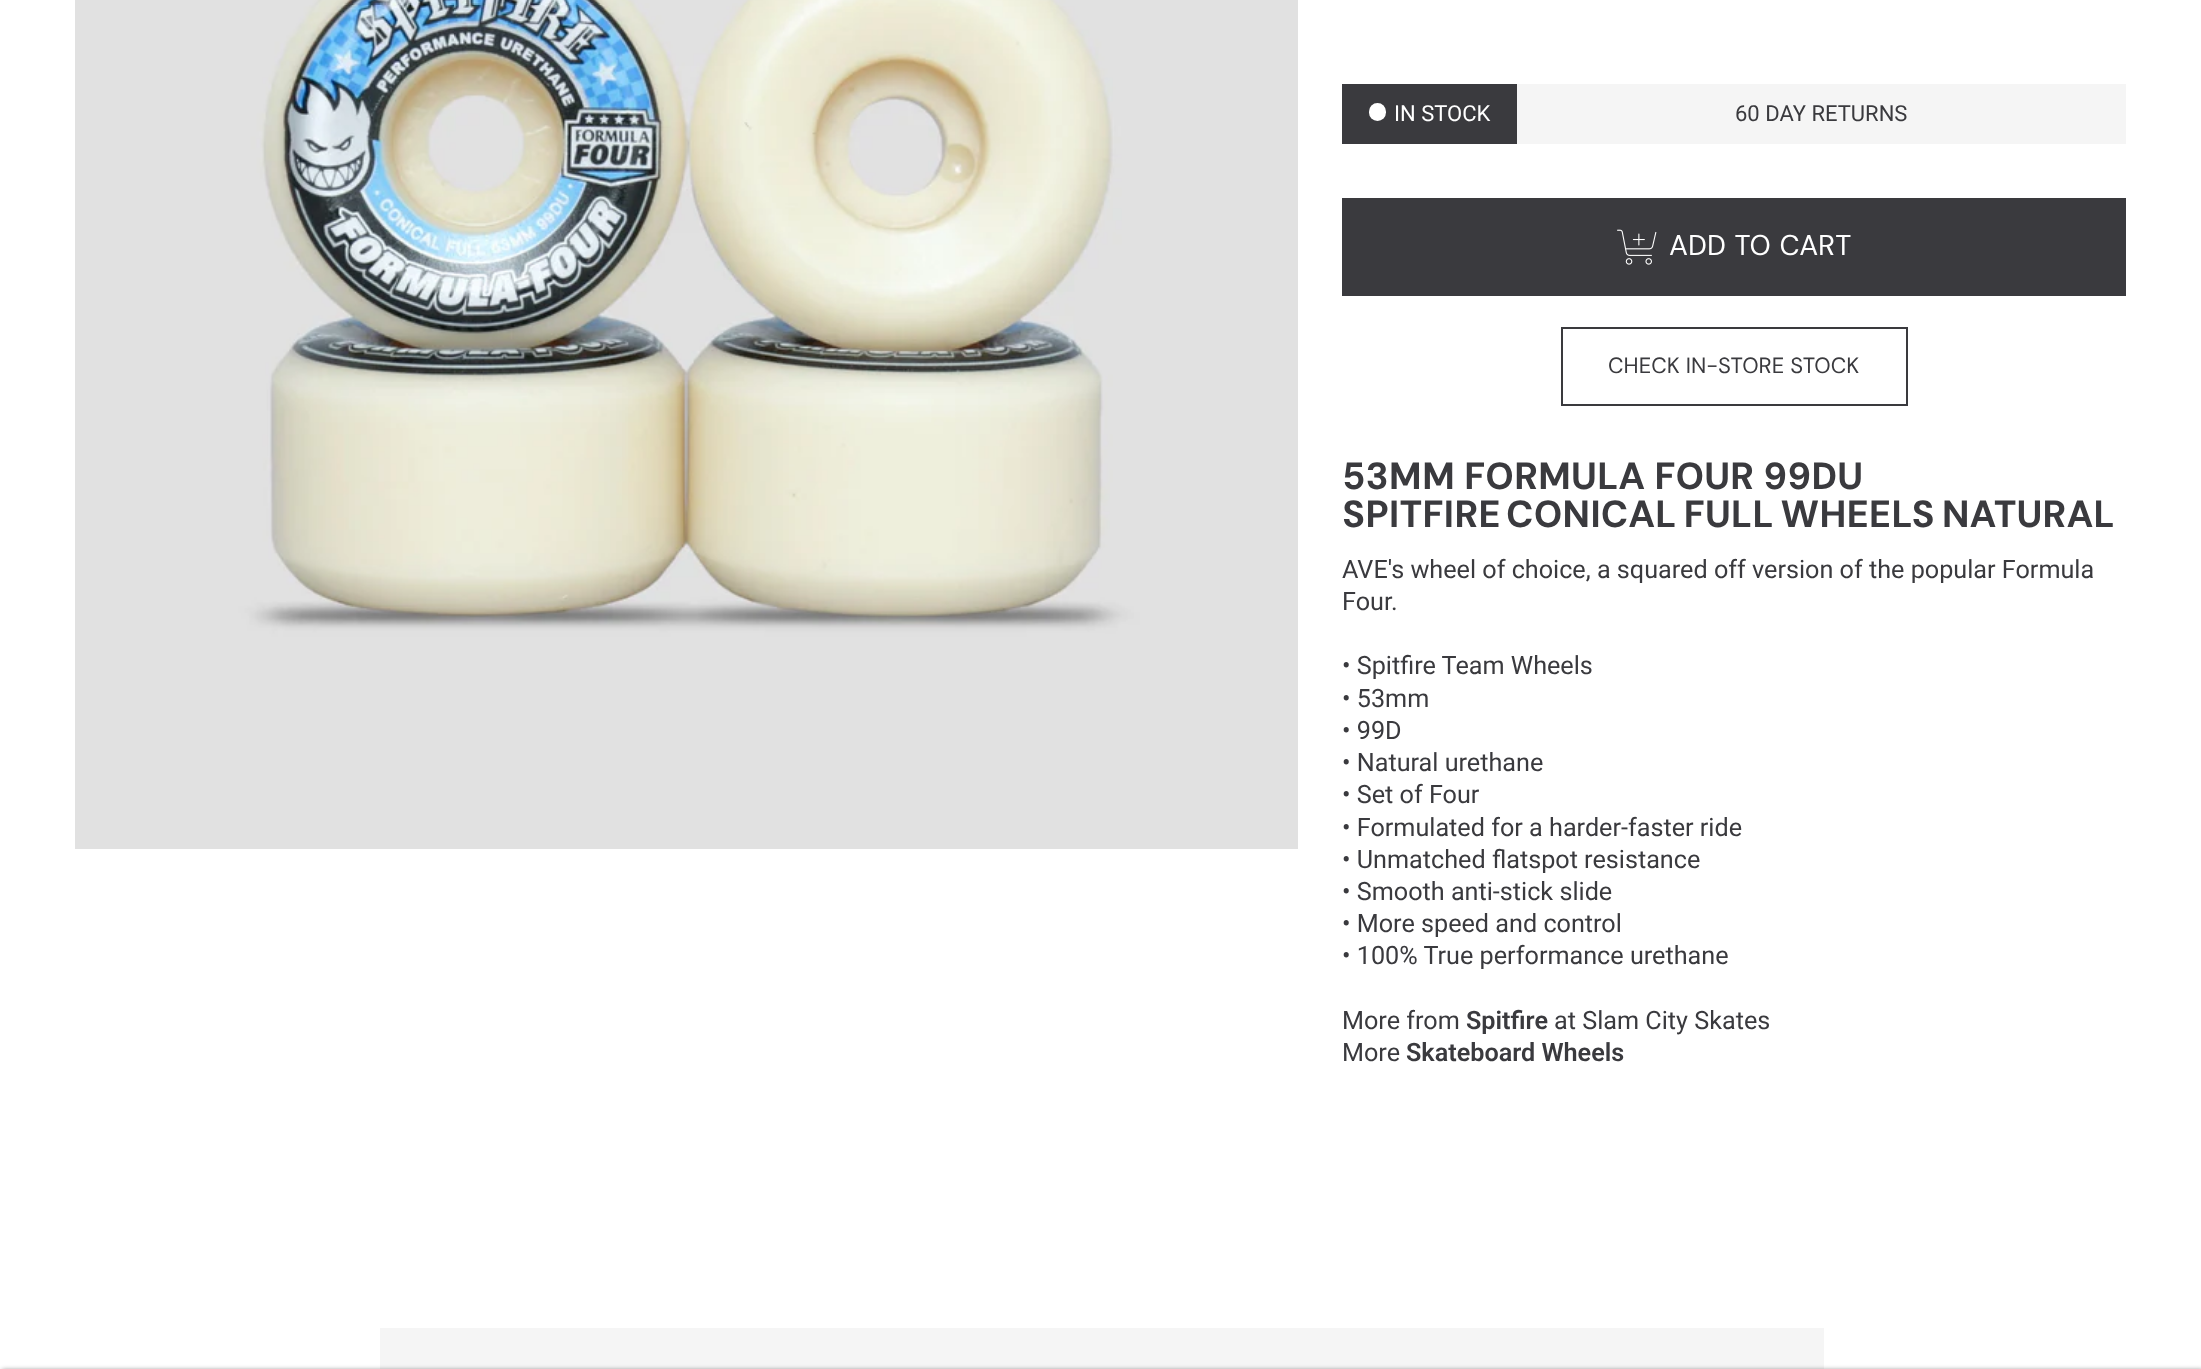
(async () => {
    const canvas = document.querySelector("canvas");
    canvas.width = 2201;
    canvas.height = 1369;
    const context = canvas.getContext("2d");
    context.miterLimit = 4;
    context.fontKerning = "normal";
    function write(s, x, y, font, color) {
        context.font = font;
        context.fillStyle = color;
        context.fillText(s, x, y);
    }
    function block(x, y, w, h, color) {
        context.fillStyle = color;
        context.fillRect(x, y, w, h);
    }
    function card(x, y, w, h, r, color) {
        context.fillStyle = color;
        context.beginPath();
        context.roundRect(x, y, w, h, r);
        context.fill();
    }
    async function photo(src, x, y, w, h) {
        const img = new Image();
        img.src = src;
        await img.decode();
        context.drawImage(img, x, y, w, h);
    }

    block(0, 0, 2201, 1369, "rgb(255, 255, 255)");
    await photo("media/1.png", 75, 0, 1223, 849);
    block(1342, 84, 175, 60, "rgb(58, 58, 62)");
    card(1369, 103, 17, 18, 8.5, "rgb(255, 255, 255)");
    write("IN STOCK", 1394, 121, "22px Roboto", "rgb(255, 255, 255)");
    block(1517, 84, 609, 60, "rgb(245, 245, 245)");
    write("60 DAY RETURNS", 1735, 121, "22px Roboto", "rgb(58, 58, 62)");
    block(1342, 198, 784, 98, "rgb(58, 58, 62)");
    await photo("media/2.png", 1617, 229, 40, 36);
    context.wordSpacing = "1px";
    write("ADD TO CART", 1669, 255, "28.5px DM Sans", "rgb(255, 255, 255)");
    block(380, 1328, 1444, 41, "rgb(245, 245, 245)");
    context.fillStyle = "rgba(0, 0, 0, 0.5)";
    context.filter = "blur(2.5px)";
    context.beginPath();
    context.rect(2, 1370, 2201, 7);
    context.fill();
    context.filter = "none";
    context.strokeStyle = "rgb(58, 58, 62)";
    context.lineWidth = 2;
    context.strokeRect(1562, 328, 345, 77);
    context.wordSpacing = "0px";
    write("CHECK IN-STORE STOCK", 1608, 373, "22px DM Sans", "rgb(58, 58, 62)");
    write("53MM FORMULA FOUR 99DU", 1342, 489, "bold 37.75px DM Sans", "rgb(58, 58, 62)");
    write("SPITFIRE", 1342, 527, "bold 37.75px DM Sans", "rgb(58, 58, 62)");
    context.wordSpacing = "-2px";
    write("CONICAL FULL WHEELS NATURAL", 1506, 527, "bold 37.75px DM Sans", "rgb(58, 58, 62)");
    context.wordSpacing = "0px";
    write("AVE's wheel of choice, a squared off version of the popular Formula", 1342, 578, "25.2px Roboto", "rgb(58, 58, 62)");
    write("Four.", 1342, 610, "25.2px Roboto", "rgb(58, 58, 62)");
    write("• Spitfire Team Wheels", 1342, 674, "25.2px Roboto", "rgb(58, 58, 62)");
    write("• 53mm", 1342, 707, "25.2px Roboto", "rgb(58, 58, 62)");
    write("• 99D", 1342, 739, "25.2px Roboto", "rgb(58, 58, 62)");
    write("• Natural urethane", 1342, 771, "25.2px Roboto", "rgb(58, 58, 62)");
    write("• Set of Four", 1342, 803, "25.2px Roboto", "rgb(58, 58, 62)");
    write("• Formulated for a harder-faster ride", 1342, 836, "25.2px Roboto", "rgb(58, 58, 62)");
    write("• Unmatched flatspot resistance", 1342, 868, "25.2px Roboto", "rgb(58, 58, 62)");
    write("• Smooth anti-stick slide", 1342, 900, "25.2px Roboto", "rgb(58, 58, 62)");
    write("• More speed and control", 1342, 932, "25.2px Roboto", "rgb(58, 58, 62)");
    write("• 100% True performance urethane", 1342, 964, "25.2px Roboto", "rgb(58, 58, 62)");
    write("More from", 1342, 1029, "25.2px Roboto", "rgb(58, 58, 62)");
    write("Spitfire", 1466, 1029, "600 25.2px Roboto", "rgb(58, 58, 62)");
    write("at Slam City Skates", 1554, 1029, "25.2px Roboto", "rgb(58, 58, 62)");
    write("More", 1342, 1061, "25.2px Roboto", "rgb(58, 58, 62)");
    write("Skateboard Wheels", 1406, 1061, "600 25.2px Roboto", "rgb(58, 58, 62)");
})();
